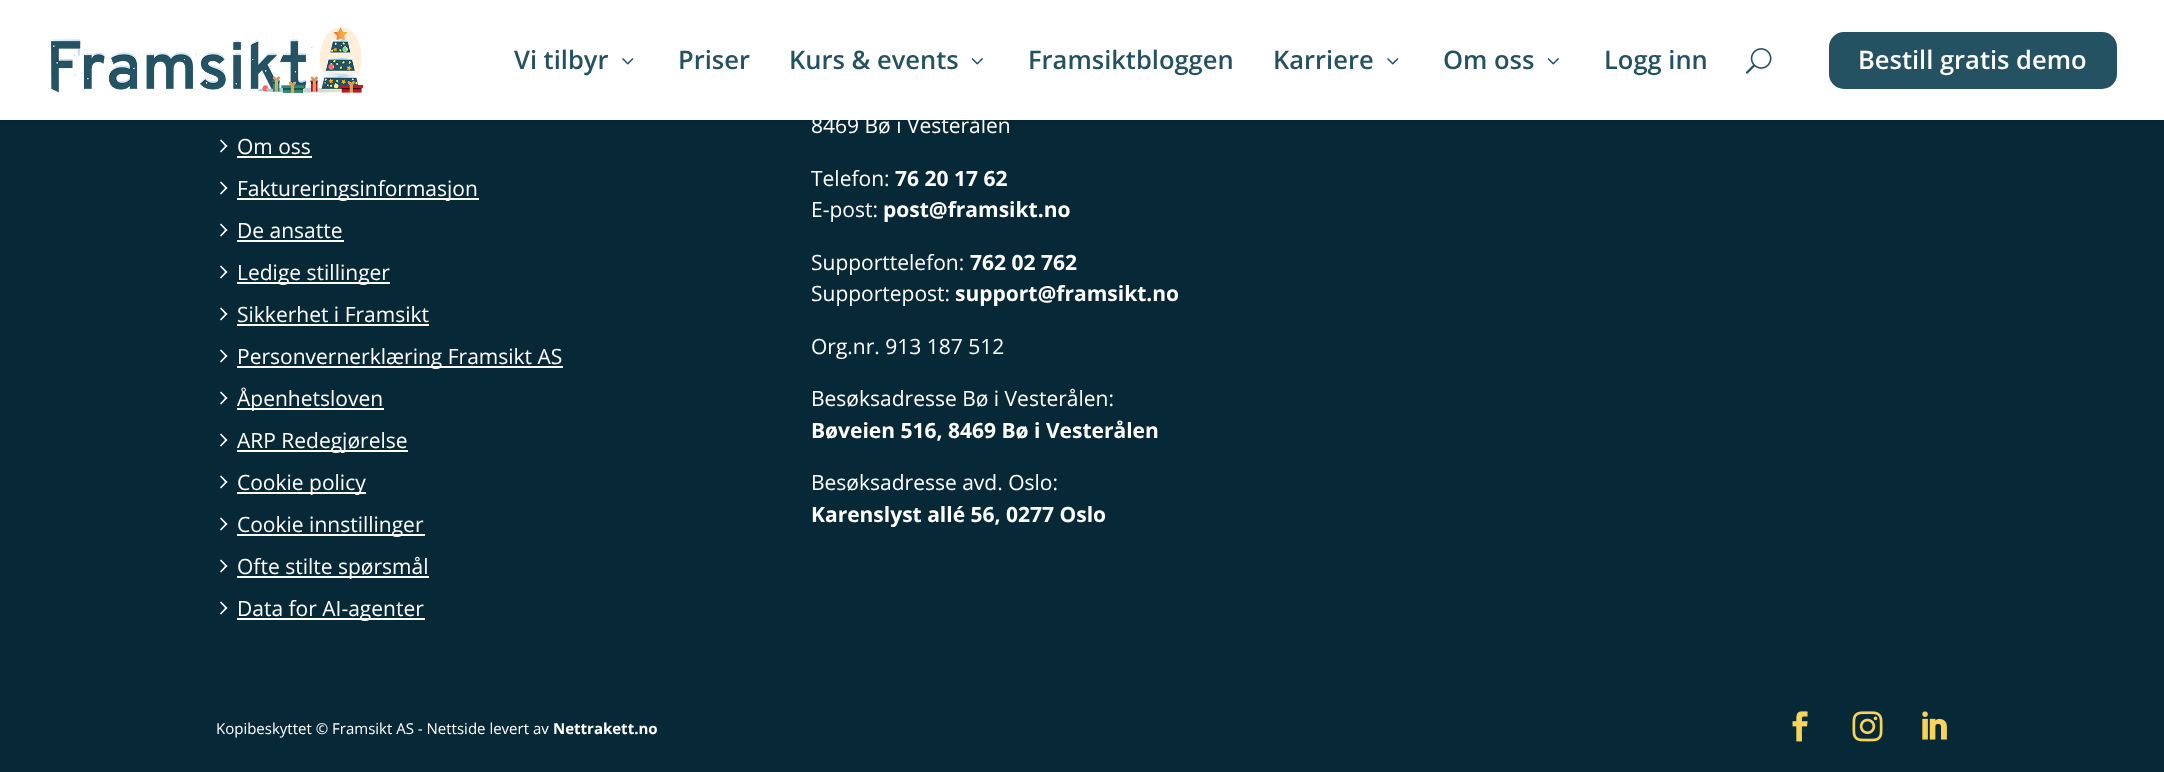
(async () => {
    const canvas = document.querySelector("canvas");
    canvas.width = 2164;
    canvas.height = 772;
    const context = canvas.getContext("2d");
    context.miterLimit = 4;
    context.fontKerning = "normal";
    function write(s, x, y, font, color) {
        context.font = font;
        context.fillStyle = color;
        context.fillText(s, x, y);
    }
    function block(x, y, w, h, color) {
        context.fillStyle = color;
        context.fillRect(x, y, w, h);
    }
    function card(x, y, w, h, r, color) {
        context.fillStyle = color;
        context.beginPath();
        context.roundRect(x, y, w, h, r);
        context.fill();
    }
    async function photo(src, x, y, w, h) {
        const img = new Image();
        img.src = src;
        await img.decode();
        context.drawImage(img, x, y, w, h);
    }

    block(0, 0, 2164, 772, "rgb(7, 40, 55)");
    context.fillStyle = "rgba(0, 0, 0, 0.1)";
    context.filter = "blur(5px)";
    context.beginPath();
    context.rect(0, 0, 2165, 120);
    context.fill();
    context.filter = "none";
    block(0, 0, 2164, 120, "rgb(255, 255, 255)");
    await photo("media/1.png", 51, 27, 312, 66);
    write("Vi tilbyr", 514, 69, "600 25.5px Open Sans", "rgb(36, 82, 99)");
    await photo("media/2.png", 622, 58, 12, 7);
    write("Priser", 678, 69, "600 25.5px Open Sans", "rgb(36, 82, 99)");
    write("Kurs & events", 789, 69, "600 25.5px Open Sans", "rgb(36, 82, 99)");
    await photo("media/3.png", 971, 58, 12, 7);
    write("Framsiktbloggen", 1028, 69, "600 25.5px Open Sans", "rgb(36, 82, 99)");
    write("Karriere", 1273, 69, "600 25.5px Open Sans", "rgb(36, 82, 99)");
    await photo("media/2.png", 1387, 58, 12, 7);
    write("Om oss", 1443, 69, "600 25.5px Open Sans", "rgb(36, 82, 99)");
    await photo("media/3.png", 1547, 58, 12, 7);
    write("Logg inn", 1604, 69, "600 25.5px Open Sans", "rgb(36, 82, 99)");
    await photo("media/4.png", 1745, 48, 27, 26);
    card(1829, 32, 288, 57, 15, "rgb(36, 82, 99)");
    write("Bestill gratis demo", 1858, 69, "600 25.5px Open Sans", "rgb(255, 255, 255)");
    context.beginPath();
    context.moveTo(220, 140.5);
    context.lineTo(221, 139.5);
    context.lineTo(227.5, 146);
    context.lineTo(226, 147);
    context.closePath();
    context.fill();
    context.beginPath();
    context.moveTo(220, 151.5);
    context.lineTo(226, 145);
    context.lineTo(227.5, 146);
    context.lineTo(221, 152.5);
    context.closePath();
    context.fill();
    write("Om oss", 237, 154, "21px Open Sans", "rgb(255, 255, 255)");
    block(237, 156, 75, 2, "rgb(255, 255, 255)");
    context.beginPath();
    context.moveTo(220, 182.5);
    context.lineTo(221, 181.5);
    context.lineTo(227.5, 188);
    context.lineTo(226, 189);
    context.closePath();
    context.fill();
    context.beginPath();
    context.moveTo(220, 193.5);
    context.lineTo(226, 187);
    context.lineTo(227.5, 188);
    context.lineTo(221, 194.5);
    context.closePath();
    context.fill();
    block(237, 198, 242, 2, "rgb(255, 255, 255)");
    write("Faktureringsinformasjon", 237, 196, "21px Open Sans", "rgb(255, 255, 255)");
    context.beginPath();
    context.moveTo(220, 224.5);
    context.lineTo(221, 223.5);
    context.lineTo(227.5, 230);
    context.lineTo(226, 231);
    context.closePath();
    context.fill();
    context.beginPath();
    context.moveTo(220, 235.5);
    context.lineTo(226, 229);
    context.lineTo(227.5, 230);
    context.lineTo(221, 236.5);
    context.closePath();
    context.fill();
    write("De ansatte", 237, 238, "21px Open Sans", "rgb(255, 255, 255)");
    block(237, 240, 107, 2, "rgb(255, 255, 255)");
    context.beginPath();
    context.moveTo(220, 266.5);
    context.lineTo(221, 265.5);
    context.lineTo(227.5, 272);
    context.lineTo(226, 273);
    context.closePath();
    context.fill();
    context.beginPath();
    context.moveTo(220, 277.5);
    context.lineTo(226, 271);
    context.lineTo(227.5, 272);
    context.lineTo(221, 278.5);
    context.closePath();
    context.fill();
    block(237, 282, 153, 2, "rgb(255, 255, 255)");
    write("Ledige stillinger", 237, 280, "21px Open Sans", "rgb(255, 255, 255)");
    context.beginPath();
    context.moveTo(220, 308.5);
    context.lineTo(221, 307.5);
    context.lineTo(227.5, 314);
    context.lineTo(226, 315);
    context.closePath();
    context.fill();
    context.beginPath();
    context.moveTo(220, 319.5);
    context.lineTo(226, 313);
    context.lineTo(227.5, 314);
    context.lineTo(221, 320.5);
    context.closePath();
    context.fill();
    write("Sikkerhet i Framsikt", 237, 322, "21px Open Sans", "rgb(255, 255, 255)");
    block(237, 324, 192, 2, "rgb(255, 255, 255)");
    context.beginPath();
    context.moveTo(220, 350.5);
    context.lineTo(221, 349.5);
    context.lineTo(227.5, 356);
    context.lineTo(226, 357);
    context.closePath();
    context.fill();
    context.beginPath();
    context.moveTo(220, 361.5);
    context.lineTo(226, 355);
    context.lineTo(227.5, 356);
    context.lineTo(221, 362.5);
    context.closePath();
    context.fill();
    block(237, 366, 326, 2, "rgb(255, 255, 255)");
    write("Personvernerklæring Framsikt AS", 237, 364, "21px Open Sans", "rgb(255, 255, 255)");
    context.beginPath();
    context.moveTo(220, 392.5);
    context.lineTo(221, 391.5);
    context.lineTo(227.5, 398);
    context.lineTo(226, 399);
    context.closePath();
    context.fill();
    context.beginPath();
    context.moveTo(220, 403.5);
    context.lineTo(226, 397);
    context.lineTo(227.5, 398);
    context.lineTo(221, 404.5);
    context.closePath();
    context.fill();
    block(237, 408, 147, 2, "rgb(255, 255, 255)");
    write("Åpenhetsloven", 237, 406, "21px Open Sans", "rgb(255, 255, 255)");
    context.beginPath();
    context.moveTo(220, 434.5);
    context.lineTo(221, 433.5);
    context.lineTo(227.5, 440);
    context.lineTo(226, 441);
    context.closePath();
    context.fill();
    context.beginPath();
    context.moveTo(220, 445.5);
    context.lineTo(226, 439);
    context.lineTo(227.5, 440);
    context.lineTo(221, 446.5);
    context.closePath();
    context.fill();
    block(237, 450, 171, 2, "rgb(255, 255, 255)");
    write("ARP Redegjørelse", 237, 448, "21px Open Sans", "rgb(255, 255, 255)");
    context.beginPath();
    context.moveTo(220, 476.5);
    context.lineTo(221, 475.5);
    context.lineTo(227.5, 482);
    context.lineTo(226, 483);
    context.closePath();
    context.fill();
    context.beginPath();
    context.moveTo(220, 487.5);
    context.lineTo(226, 481);
    context.lineTo(227.5, 482);
    context.lineTo(221, 488.5);
    context.closePath();
    context.fill();
    block(237, 492, 129, 2, "rgb(255, 255, 255)");
    write("Cookie policy", 237, 490, "21px Open Sans", "rgb(255, 255, 255)");
    context.beginPath();
    context.moveTo(220, 518.5);
    context.lineTo(221, 517.5);
    context.lineTo(227.5, 524);
    context.lineTo(226, 525);
    context.closePath();
    context.fill();
    context.beginPath();
    context.moveTo(220, 529.5);
    context.lineTo(226, 523);
    context.lineTo(227.5, 524);
    context.lineTo(221, 530.5);
    context.closePath();
    context.fill();
    block(237, 534, 188, 2, "rgb(255, 255, 255)");
    write("Cookie innstillinger", 237, 532, "21px Open Sans", "rgb(255, 255, 255)");
    context.beginPath();
    context.moveTo(220, 560.5);
    context.lineTo(221, 559.5);
    context.lineTo(227.5, 566);
    context.lineTo(226, 567);
    context.closePath();
    context.fill();
    context.beginPath();
    context.moveTo(220, 571.5);
    context.lineTo(226, 565);
    context.lineTo(227.5, 566);
    context.lineTo(221, 572.5);
    context.closePath();
    context.fill();
    block(237, 576, 192, 2, "rgb(255, 255, 255)");
    write("Ofte stilte spørsmål", 237, 574, "21px Open Sans", "rgb(255, 255, 255)");
    context.beginPath();
    context.moveTo(220, 602.5);
    context.lineTo(221, 601.5);
    context.lineTo(227.5, 608);
    context.lineTo(226, 609);
    context.closePath();
    context.fill();
    context.beginPath();
    context.moveTo(220, 613.5);
    context.lineTo(226, 607);
    context.lineTo(227.5, 608);
    context.lineTo(221, 614.5);
    context.closePath();
    context.fill();
    block(237, 618, 188, 2, "rgb(255, 255, 255)");
    write("Data for AI-agenter", 237, 616, "21px Open Sans", "rgb(255, 255, 255)");
    write("8469 Bø i Vesterålen", 811, 133, "21px Open Sans", "rgb(255, 255, 255)");
    write("Telefon:", 811, 186, "21px Open Sans", "rgb(255, 255, 255)");
    write("76 20 17 62", 895, 186, "bold 21px Open Sans", "rgb(255, 255, 255)");
    write("E-post:", 811, 217, "21px Open Sans", "rgb(255, 255, 255)");
    write("post@framsikt.no", 883, 217, "bold 21px Open Sans", "rgb(255, 255, 255)");
    write("Supporttelefon:", 811, 270, "21px Open Sans", "rgb(255, 255, 255)");
    write("762 02 762", 970, 270, "bold 21px Open Sans", "rgb(255, 255, 255)");
    write("Supportepost:", 811, 301, "21px Open Sans", "rgb(255, 255, 255)");
    write("support@framsikt.no", 955, 301, "bold 21px Open Sans", "rgb(255, 255, 255)");
    write("Org.nr. 913 187 512", 811, 354, "21px Open Sans", "rgb(255, 255, 255)");
    write("Besøksadresse Bø i Vesterålen:", 811, 406, "21px Open Sans", "rgb(255, 255, 255)");
    write("Bøveien 516, 8469 Bø i Vesterålen", 811, 438, "bold 21px Open Sans", "rgb(255, 255, 255)");
    write("Besøksadresse avd. Oslo:", 811, 490, "21px Open Sans", "rgb(255, 255, 255)");
    write("Karenslyst allé 56, 0277 Oslo", 811, 522, "bold 21px Open Sans", "rgb(255, 255, 255)");
    write("Kopibeskyttet © Framsikt AS - Nettside levert av", 216, 734, "15px Open Sans", "rgb(255, 255, 255)");
    write("Nettrakett.no", 553, 734, "bold 15px Open Sans", "rgb(255, 255, 255)");
    await photo("media/5.png", 1792, 711, 16, 31);
    await photo("media/6.png", 1852, 711, 31, 31);
    await photo("media/7.png", 1922, 711, 25, 29);
})();
